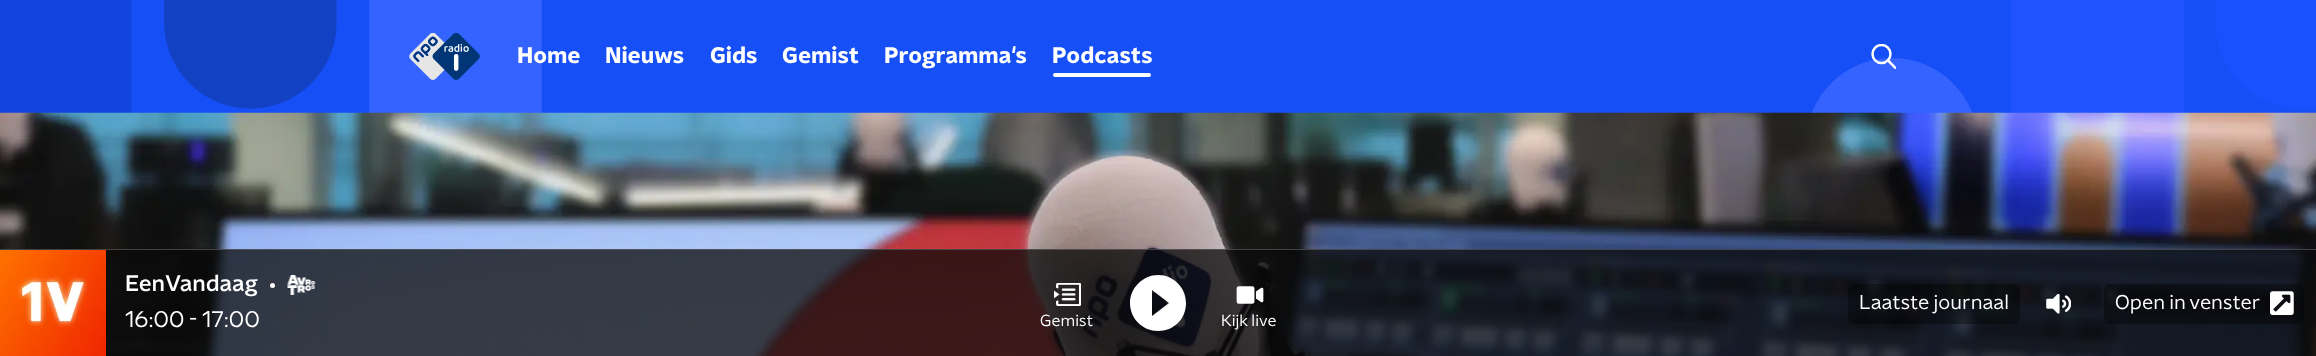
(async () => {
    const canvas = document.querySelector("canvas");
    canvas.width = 2316;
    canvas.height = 356;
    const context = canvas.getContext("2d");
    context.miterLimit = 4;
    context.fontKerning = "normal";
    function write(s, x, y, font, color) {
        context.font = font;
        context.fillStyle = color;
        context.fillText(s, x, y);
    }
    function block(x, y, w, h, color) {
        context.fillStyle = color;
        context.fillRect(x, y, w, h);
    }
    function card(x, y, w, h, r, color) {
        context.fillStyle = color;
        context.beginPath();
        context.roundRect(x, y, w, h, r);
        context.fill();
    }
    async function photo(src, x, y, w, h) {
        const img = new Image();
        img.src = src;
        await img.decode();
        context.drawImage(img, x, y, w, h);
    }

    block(0, 0, 2316, 356, "rgb(255, 255, 255)");
    await photo("media/1.png", 0, 0, 2316, 113);
    await photo("media/2.png", 409, 33, 71, 47);
    write("Home", 517, 63, "bold 22.5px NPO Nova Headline", "rgb(255, 255, 255)");
    write("Nieuws", 605, 63, "bold 22.5px NPO Nova Headline", "rgb(255, 255, 255)");
    write("Gids", 710, 63, "bold 22.5px NPO Nova Headline", "rgb(255, 255, 255)");
    write("Gemist", 782, 63, "bold 22.5px NPO Nova Headline", "rgb(255, 255, 255)");
    write("Programma's", 884, 63, "bold 22.5px NPO Nova Headline", "rgb(255, 255, 255)");
    write("Podcasts", 1052, 63, "bold 22.5px NPO Nova Headline", "rgb(255, 255, 255)");
    card(1053, 73, 98, 4, 2, "rgb(255, 255, 255)");
    context.save();
    context.beginPath();
    context.rect(1871, 44, 25, 25);
    context.clip();
    context.beginPath();
    context.arc(1881.5, 54, 9, 0, Math.PI * 2);
    context.strokeStyle = "rgb(255, 255, 255)";
    context.lineWidth = 2.5;
    context.stroke();
    context.beginPath();
    context.moveTo(1888, 60.5);
    context.lineTo(1895.5, 68);
    context.lineCap = "square";
    context.stroke();
    context.restore();
    await photo("media/3.png", 0, 112, 2316, 244);
    block(0, 249, 2316, 107, "rgba(9, 9, 9, 0.75)");
    block(0, 249, 2316, 1, "rgba(95, 95, 95, 0.65)");
    await photo("media/4.png", 0, 250, 106, 106);
    write("EenVandaag", 125, 291, "500 22.5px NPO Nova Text", "rgb(255, 255, 255)");
    context.beginPath();
    context.arc(272.5, 285.5, 2.5, 0, Math.PI * 2);
    context.fill();
    await photo("media/5.png", 287, 275, 29, 20);
    write("16:00 - 17:00", 125, 327, "22.5px NPO Nova Text", "rgb(255, 255, 255)");
    card(1848, 284, 172, 40, 6, "rgba(0, 0, 0, 0.35)");
    write("Laatste journaal", 1859, 309, "20px NPO Nova Text", "rgb(255, 255, 255)");
    await photo("media/6.png", 2046, 294, 25, 20);
    card(2104, 284, 200, 40, 6, "rgba(0, 0, 0, 0.35)");
    write("Open in venster", 2115, 309, "20px NPO Nova Text", "rgb(255, 255, 255)");
    await photo("media/7.png", 2270, 291, 24, 24);
    await photo("media/8.png", 1054, 283, 27, 23);
    write("Gemist", 1040, 326, "16px NPO Nova Text", "rgb(255, 255, 255)");
    context.beginPath();
    context.moveTo(1158, 275);
    context.bezierCurveTo(1143, 275, 1130, 288, 1130, 303);
    context.bezierCurveTo(1130, 319, 1143, 331, 1158, 331);
    context.bezierCurveTo(1174, 331, 1186, 319, 1186, 303);
    context.bezierCurveTo(1186, 288, 1174, 275, 1158, 275);
    context.closePath();
    context.moveTo(1152, 316);
    context.lineTo(1152, 290);
    context.lineTo(1169, 303);
    context.closePath();
    context.fill();
    await photo("media/9.png", 1236, 286, 28, 18);
    write("Kijk live", 1221, 326, "16px NPO Nova Text", "rgb(255, 255, 255)");
})();
